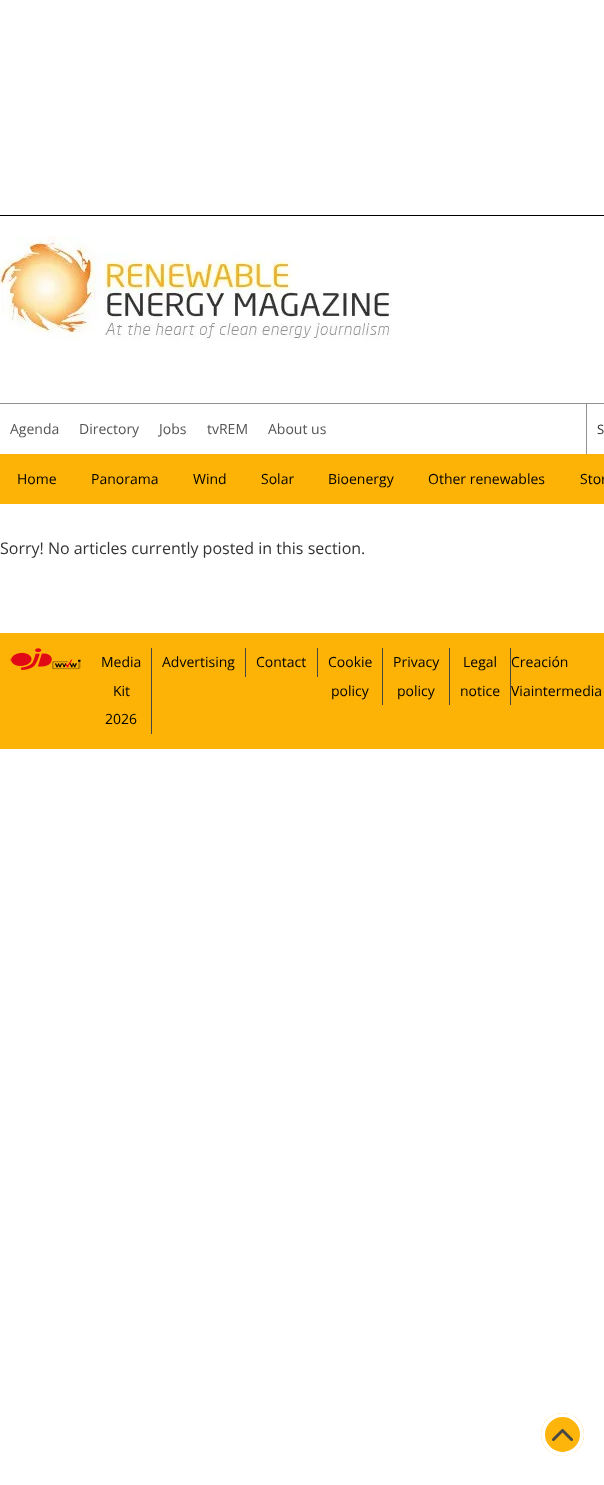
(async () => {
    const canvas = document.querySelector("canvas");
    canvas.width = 604;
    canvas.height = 1485;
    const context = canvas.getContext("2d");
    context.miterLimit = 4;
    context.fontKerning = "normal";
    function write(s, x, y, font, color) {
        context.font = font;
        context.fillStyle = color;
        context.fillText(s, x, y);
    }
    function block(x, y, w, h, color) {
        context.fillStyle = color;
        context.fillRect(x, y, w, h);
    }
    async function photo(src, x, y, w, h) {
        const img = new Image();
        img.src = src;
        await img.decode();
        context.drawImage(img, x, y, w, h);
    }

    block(0, 0, 604, 1485, "rgb(255, 255, 255)");
    block(0, 215, 604, 1, "rgb(0, 0, 0)");
    await photo("media/1.png", 0, 236, 392, 104);
    block(0, 403, 604, 1, "rgb(146, 146, 146)");
    write("Agenda", 10, 434, "14px Open Sans", "rgb(84, 84, 84)");
    write("Directory", 79, 434, "14px Open Sans", "rgb(84, 84, 84)");
    write("Jobs", 159, 434, "14px Open Sans", "rgb(84, 84, 84)");
    write("tvREM", 207, 434, "14px Open Sans", "rgb(84, 84, 84)");
    write("About us", 268, 434, "14px Open Sans", "rgb(84, 84, 84)");
    block(586, 404, 1, 50, "rgb(146, 146, 146)");
    write("S", 597, 434, "13px Open Sans", "rgb(51, 51, 51)");
    block(0, 454, 604, 50, "rgb(253, 179, 6)");
    write("Home", 17, 484, "14px Open Sans", "rgb(0, 0, 0)");
    write("Panorama", 91, 484, "14px Open Sans", "rgb(0, 0, 0)");
    write("Wind", 193, 484, "14px Open Sans", "rgb(0, 0, 0)");
    write("Solar", 261, 484, "14px Open Sans", "rgb(0, 0, 0)");
    write("Bioenergy", 328, 484, "14px Open Sans", "rgb(0, 0, 0)");
    write("Other renewables", 428, 484, "14px Open Sans", "rgb(0, 0, 0)");
    write("Stor", 580, 484, "14px Open Sans", "rgb(0, 0, 0)");
    write("Sorry! No articles currently posted in this section.", 0, 554, "16px Open Sans", "rgb(51, 51, 51)");
    block(0, 633, 604, 116, "rgb(253, 179, 6)");
    await photo("media/2.png", 10, 648, 71, 22);
    block(151, 648, 1, 86, "rgb(70, 70, 70)");
    write("Media", 101, 667, "14px Open Sans", "rgb(0, 0, 0)");
    write("Kit", 113, 696, "14px Open Sans", "rgb(0, 0, 0)");
    write("2026", 105, 724, "14px Open Sans", "rgb(0, 0, 0)");
    block(245, 648, 1, 29, "rgb(70, 70, 70)");
    write("Advertising", 162, 667, "14px Open Sans", "rgb(0, 0, 0)");
    block(317, 648, 1, 29, "rgb(70, 70, 70)");
    write("Contact", 256, 667, "14px Open Sans", "rgb(0, 0, 0)");
    block(382, 648, 1, 57, "rgb(70, 70, 70)");
    write("Cookie", 328, 667, "14px Open Sans", "rgb(0, 0, 0)");
    write("policy", 331, 696, "14px Open Sans", "rgb(0, 0, 0)");
    block(449, 648, 1, 57, "rgb(70, 70, 70)");
    write("Privacy", 393, 667, "14px Open Sans", "rgb(0, 0, 0)");
    write("policy", 397, 696, "14px Open Sans", "rgb(0, 0, 0)");
    block(510, 648, 1, 57, "rgb(70, 70, 70)");
    write("Legal", 463, 667, "14px Open Sans", "rgb(0, 0, 0)");
    write("notice", 460, 696, "14px Open Sans", "rgb(0, 0, 0)");
    write("Creación", 511, 667, "14px Open Sans", "rgb(0, 0, 0)");
    write("Viaintermedia", 511, 696, "14px Open Sans", "rgb(0, 0, 0)");
    context.fillStyle = "rgb(253, 181, 11)";
    context.beginPath();
    context.arc(562.5, 1434.5, 21.5, 0, Math.PI * 2);
    context.fill();
    await photo("media/3.png", 552, 1429, 21, 12);
    context.beginPath();
    context.arc(562.5, 1434.5, 19.5, 0, Math.PI * 2);
    context.strokeStyle = "rgb(255, 255, 255)";
    context.lineWidth = 4;
    context.stroke();
})();
